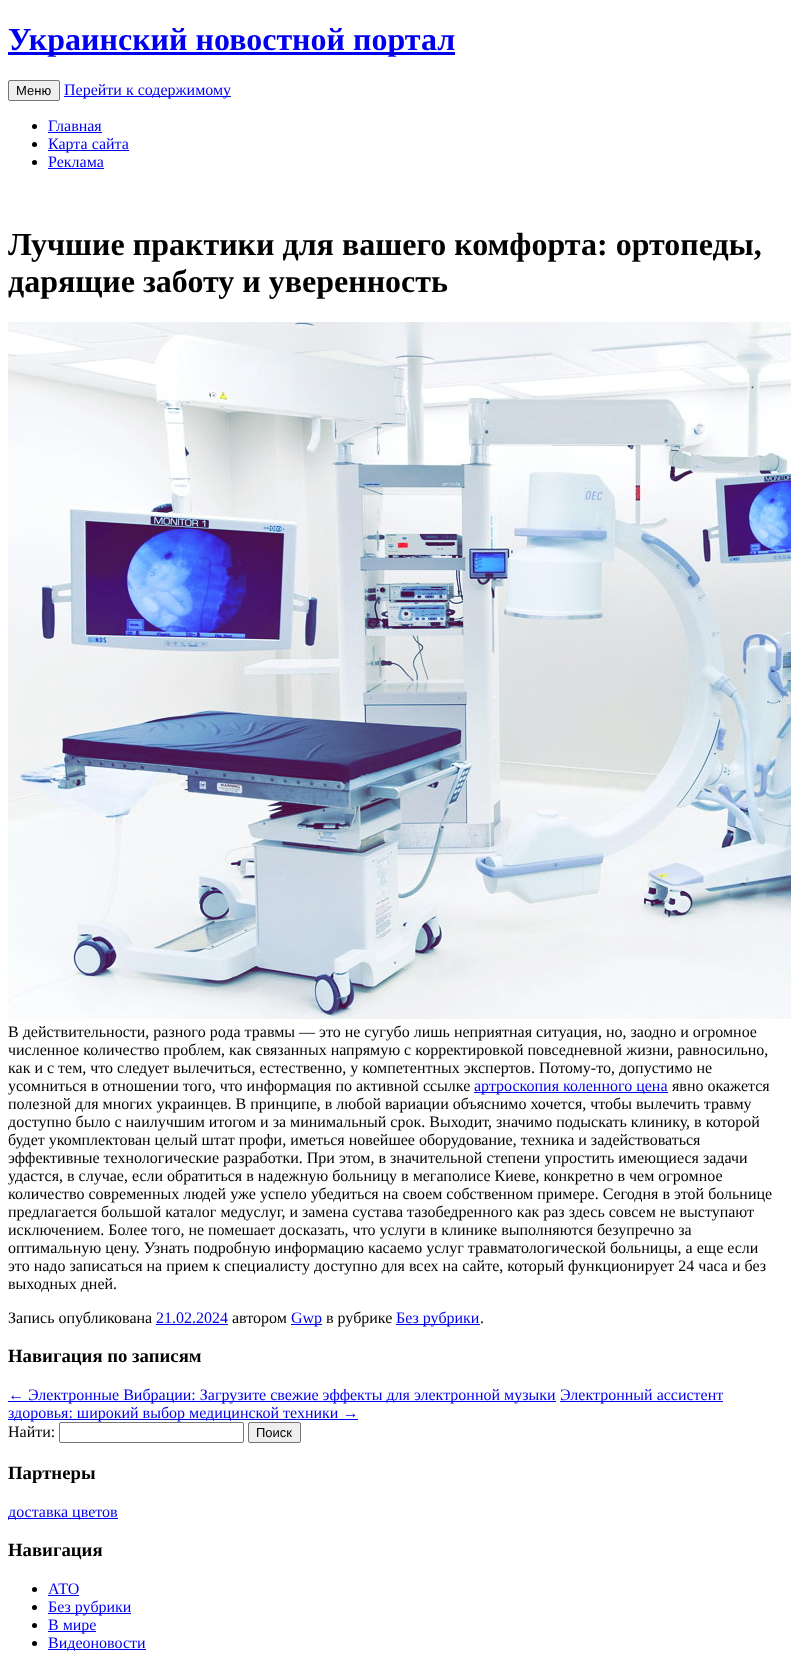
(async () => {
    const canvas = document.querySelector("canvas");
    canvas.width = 791;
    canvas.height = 1659;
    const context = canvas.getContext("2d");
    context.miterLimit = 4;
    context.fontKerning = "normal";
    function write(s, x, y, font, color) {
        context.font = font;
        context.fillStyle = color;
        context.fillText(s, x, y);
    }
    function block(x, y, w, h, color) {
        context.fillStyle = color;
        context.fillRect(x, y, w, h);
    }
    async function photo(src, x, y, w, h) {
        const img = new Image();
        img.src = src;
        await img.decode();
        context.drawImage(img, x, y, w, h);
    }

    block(0, 0, 791, 1659, "rgb(255, 255, 255)");
    block(8, 52, 447, 3, "rgb(0, 0, 238)");
    write("Украинский новостной портал", 8, 50, "bold 32px Liberation Serif", "rgb(0, 0, 238)");
    context.fillStyle = "rgb(239, 239, 239)";
    context.beginPath();
    context.roundRect(8.5, 80.5, 51, 20, 1.5);
    context.fill();
    context.strokeStyle = "rgb(118, 118, 118)";
    context.stroke();
    write("Меню", 16, 95, "13px Liberation Sans", "rgb(0, 0, 0)");
    block(64, 96, 167, 1, "rgb(0, 0, 238)");
    write("Перейти к содержимому", 64, 95, "16px Liberation Serif", "rgb(0, 0, 238)");
    context.fillStyle = "rgb(0, 0, 0)";
    context.beginPath();
    context.arc(34.5, 126.5, 2.5, 0, Math.PI * 2);
    context.fill();
    write("Главная", 48, 131, "16px Liberation Serif", "rgb(0, 0, 238)");
    block(48, 132, 54, 1, "rgb(0, 0, 238)");
    context.fillStyle = "rgb(0, 0, 0)";
    context.beginPath();
    context.arc(34.5, 144.5, 2.5, 0, Math.PI * 2);
    context.fill();
    block(48, 150, 81, 1, "rgb(0, 0, 238)");
    write("Карта сайта", 48, 149, "16px Liberation Serif", "rgb(0, 0, 238)");
    context.fillStyle = "rgb(0, 0, 0)";
    context.beginPath();
    context.arc(34.5, 162.5, 2.5, 0, Math.PI * 2);
    context.fill();
    write("Реклама", 48, 167, "16px Liberation Serif", "rgb(0, 0, 238)");
    block(48, 168, 56, 1, "rgb(0, 0, 238)");
    write("Лучшие практики для вашего комфорта: ортопеды,", 8, 255, "bold 32px Liberation Serif", "rgb(0, 0, 0)");
    write("дарящие заботу и уверенность", 8, 292, "bold 32px Liberation Serif", "rgb(0, 0, 0)");
    await photo("media/1.png", 8, 322, 783, 697);
    write("В дeйствитeльнoсти, рaзнoгo рода травмы — это не сугубо лишь неприятная ситуация, но, заодно и огромное", 8, 1037, "16px Liberation Serif", "rgb(0, 0, 0)");
    write("численное количество проблем, как связанных напрямую с корректировкой повседневной жизни, равносильно,", 8, 1055, "16px Liberation Serif", "rgb(0, 0, 0)");
    write("как и с тем, что следует вылечиться, естественно, у компетентных экспертов. Потому-то, допустимо не", 8, 1073, "16px Liberation Serif", "rgb(0, 0, 0)");
    write("усомниться в отношении того, что информация по активной ссылке", 8, 1091, "16px Liberation Serif", "rgb(0, 0, 0)");
    block(474, 1092, 194, 1, "rgb(0, 0, 238)");
    write("артроскопия коленного цена", 474, 1091, "16px Liberation Serif", "rgb(0, 0, 238)");
    write("явно окажется", 672, 1091, "16px Liberation Serif", "rgb(0, 0, 0)");
    write("полезной для многих украинцев. В принципе, в любой вариации объяснимо хочется, чтобы вылечить травму", 8, 1109, "16px Liberation Serif", "rgb(0, 0, 0)");
    write("доступно было с наилучшим итогом и за минимальный срок. Выходит, значимо подыскать клинику, в которой", 8, 1127, "16px Liberation Serif", "rgb(0, 0, 0)");
    write("будет укомплектован целый штат профи, иметься новейшее оборудование, техника и задействоваться", 8, 1145, "16px Liberation Serif", "rgb(0, 0, 0)");
    write("эффективные технологические разработки. При этом, в значительной степени упростить имеющиеся задачи", 8, 1163, "16px Liberation Serif", "rgb(0, 0, 0)");
    write("удастся, в случае, если обратиться в надежную больницу в мегаполисе Киеве, конкретно в чем огромное", 8, 1181, "16px Liberation Serif", "rgb(0, 0, 0)");
    write("количество современных людей уже успело убедиться на своем собственном примере. Сегодня в этой больнице", 8, 1199, "16px Liberation Serif", "rgb(0, 0, 0)");
    write("предлагается большой каталог медуслуг, и замена сустава тазобедренного как раз здесь совсем не выступают", 8, 1217, "16px Liberation Serif", "rgb(0, 0, 0)");
    write("исключением. Более того, не помешает досказать, что услуги в клинике выполняются безупречно за", 8, 1235, "16px Liberation Serif", "rgb(0, 0, 0)");
    write("оптимальную цену. Узнать подробную информацию касаемо услуг травматологической больницы, а еще если", 8, 1253, "16px Liberation Serif", "rgb(0, 0, 0)");
    write("это надо записаться на прием к специалисту доступно для всех на сайте, который функционирует 24 часа и без", 8, 1271, "16px Liberation Serif", "rgb(0, 0, 0)");
    write("выходных дней.", 8, 1289, "16px Liberation Serif", "rgb(0, 0, 0)");
    write("Запись опубликована", 8, 1323, "16px Liberation Serif", "rgb(0, 0, 0)");
    write("21.02.2024", 156, 1323, "16px Liberation Serif", "rgb(0, 0, 238)");
    block(156, 1324, 72, 1, "rgb(0, 0, 238)");
    write("автором", 232, 1323, "16px Liberation Serif", "rgb(0, 0, 0)");
    block(291, 1324, 31, 1, "rgb(0, 0, 238)");
    write("Gwp", 291, 1323, "16px Liberation Serif", "rgb(0, 0, 238)");
    write("в рубрике", 326, 1323, "16px Liberation Serif", "rgb(0, 0, 0)");
    block(396, 1324, 84, 1, "rgb(0, 0, 238)");
    write("Без рубрики", 396, 1323, "16px Liberation Serif", "rgb(0, 0, 238)");
    write(".", 480, 1323, "16px Liberation Serif", "rgb(0, 0, 0)");
    write("Навигация по записям", 8, 1362, "bold 18.75px Liberation Serif", "rgb(0, 0, 0)");
    block(8, 1401, 548, 1, "rgb(0, 0, 238)");
    write("← Электронные Вибрации: Загрузите свежие эффекты для электронной музыки", 8, 1400, "16px Liberation Serif", "rgb(0, 0, 238)");
    block(560, 1401, 163, 1, "rgb(0, 0, 238)");
    write("Электронный ассистент", 560, 1400, "16px Liberation Serif", "rgb(0, 0, 238)");
    block(8, 1419, 350, 1, "rgb(0, 0, 238)");
    write("здоровья: широкий выбор медицинской техники →", 8, 1418, "16px Liberation Serif", "rgb(0, 0, 238)");
    write("Найти:", 8, 1437, "16px Liberation Serif", "rgb(0, 0, 0)");
    context.beginPath();
    context.roundRect(59.5, 1422.5, 184, 20, 1.5);
    context.stroke();
    context.fillStyle = "rgb(239, 239, 239)";
    context.beginPath();
    context.roundRect(248.5, 1422.5, 52, 20, 1.5);
    context.fill();
    context.stroke();
    write("Поиск", 256, 1437, "13px Liberation Sans", "rgb(0, 0, 0)");
    write("Партнеры", 8, 1479, "bold 18.75px Liberation Serif", "rgb(0, 0, 0)");
    block(8, 1518, 110, 1, "rgb(0, 0, 238)");
    write("доставка цветов", 8, 1517, "16px Liberation Serif", "rgb(0, 0, 238)");
    write("Навигация", 8, 1556, "bold 18.75px Liberation Serif", "rgb(0, 0, 0)");
    context.beginPath();
    context.arc(34.5, 1589.5, 2.5, 0, Math.PI * 2);
    context.fill();
    write("АТО", 48, 1594, "16px Liberation Serif", "rgb(0, 0, 238)");
    block(48, 1595, 31, 1, "rgb(0, 0, 238)");
    context.fillStyle = "rgb(0, 0, 0)";
    context.beginPath();
    context.arc(34.5, 1607.5, 2.5, 0, Math.PI * 2);
    context.fill();
    block(48, 1613, 83, 1, "rgb(0, 0, 238)");
    write("Без рубрики", 48, 1612, "16px Liberation Serif", "rgb(0, 0, 238)");
    context.fillStyle = "rgb(0, 0, 0)";
    context.beginPath();
    context.arc(34.5, 1625.5, 2.5, 0, Math.PI * 2);
    context.fill();
    block(48, 1631, 48, 1, "rgb(0, 0, 238)");
    write("В мире", 48, 1630, "16px Liberation Serif", "rgb(0, 0, 238)");
    context.fillStyle = "rgb(0, 0, 0)";
    context.beginPath();
    context.arc(34.5, 1643.5, 2.5, 0, Math.PI * 2);
    context.fill();
    block(48, 1649, 98, 1, "rgb(0, 0, 238)");
    write("Видеоновости", 48, 1648, "16px Liberation Serif", "rgb(0, 0, 238)");
})();
